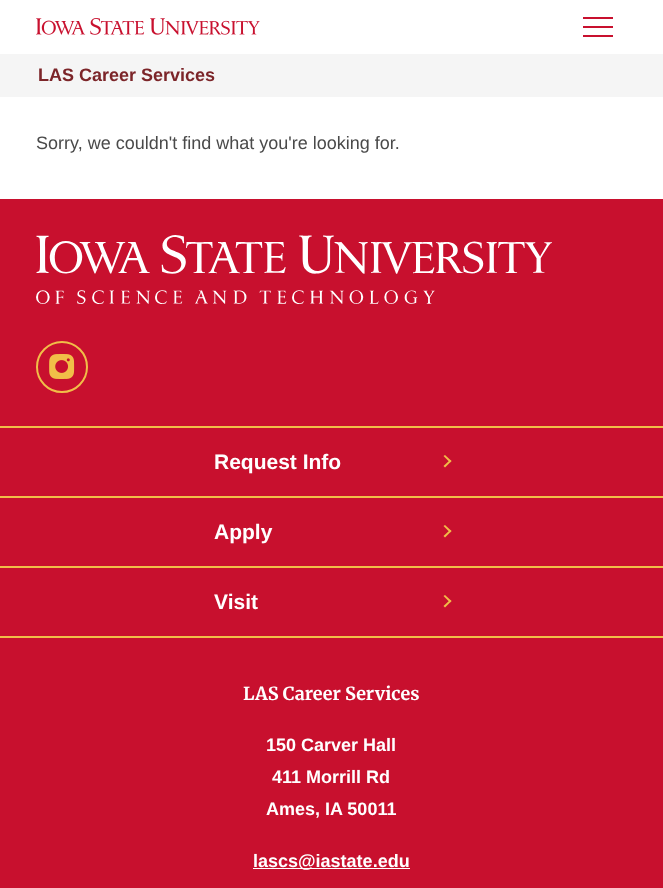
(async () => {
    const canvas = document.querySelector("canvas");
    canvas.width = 663;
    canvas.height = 888;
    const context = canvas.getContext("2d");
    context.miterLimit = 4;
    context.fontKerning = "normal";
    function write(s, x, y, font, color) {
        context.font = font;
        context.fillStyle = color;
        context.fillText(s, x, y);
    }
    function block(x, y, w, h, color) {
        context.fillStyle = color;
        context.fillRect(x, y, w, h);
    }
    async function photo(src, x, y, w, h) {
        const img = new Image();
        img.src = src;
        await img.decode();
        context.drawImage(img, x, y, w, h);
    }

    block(0, 0, 663, 888, "rgb(255, 255, 255)");
    block(583, 17, 30, 2, "rgb(200, 16, 46)");
    block(583, 26, 30, 2, "rgb(200, 16, 46)");
    block(583, 35, 30, 2, "rgb(200, 16, 46)");
    await photo("media/1.png", 36, 18, 224, 17);
    block(0, 54, 663, 43, "rgb(245, 245, 245)");
    write("LAS Career Services", 38, 81, "bold 18px Liberation Sans", "rgb(124, 37, 41)");
    write("Sorry, we couldn't find what you're looking for.", 36, 149, "18px Liberation Sans", "rgb(74, 74, 74)");
    block(0, 199, 663, 689, "rgb(200, 16, 46)");
    await photo("media/2.png", 36, 235, 516, 69);
    context.beginPath();
    context.arc(62, 367, 25, 0, Math.PI * 2);
    context.strokeStyle = "rgb(241, 190, 72)";
    context.lineWidth = 2;
    context.stroke();
    await photo("media/3.png", 49, 354, 26, 25);
    block(0, 426, 663, 2, "rgb(241, 190, 72)");
    block(0, 496, 663, 2, "rgb(241, 190, 72)");
    write("Request Info", 214, 469, "bold 21px Liberation Sans", "rgb(255, 255, 255)");
    context.fillStyle = "rgb(241, 190, 72)";
    context.beginPath();
    context.moveTo(443.5, 456);
    context.lineTo(445, 455);
    context.lineTo(451.5, 461);
    context.lineTo(450, 462.5);
    context.closePath();
    context.fill();
    context.beginPath();
    context.moveTo(443.5, 466);
    context.lineTo(450, 460);
    context.lineTo(451.5, 461);
    context.lineTo(445, 467.5);
    context.closePath();
    context.fill();
    block(0, 566, 663, 2, "rgb(241, 190, 72)");
    write("Apply", 214, 539, "bold 21px Liberation Sans", "rgb(255, 255, 255)");
    context.fillStyle = "rgb(241, 190, 72)";
    context.beginPath();
    context.moveTo(443.5, 526);
    context.lineTo(445, 525);
    context.lineTo(451.5, 531);
    context.lineTo(450, 532.5);
    context.closePath();
    context.fill();
    context.beginPath();
    context.moveTo(443.5, 536);
    context.lineTo(450, 530);
    context.lineTo(451.5, 531);
    context.lineTo(445, 537.5);
    context.closePath();
    context.fill();
    block(0, 636, 663, 2, "rgb(241, 190, 72)");
    write("Visit", 214, 609, "bold 21px Liberation Sans", "rgb(255, 255, 255)");
    context.fillStyle = "rgb(241, 190, 72)";
    context.beginPath();
    context.moveTo(443.5, 596);
    context.lineTo(445, 595);
    context.lineTo(451.5, 601);
    context.lineTo(450, 602.5);
    context.closePath();
    context.fill();
    context.beginPath();
    context.moveTo(443.5, 606);
    context.lineTo(450, 600);
    context.lineTo(451.5, 601);
    context.lineTo(445, 607.5);
    context.closePath();
    context.fill();
    write("LAS Career Services", 243, 700, "bold 18px Merriweather", "rgb(255, 255, 255)");
    write("150 Carver Hall", 266, 751, "bold 18px Liberation Sans", "rgb(255, 255, 255)");
    write("411 Morrill Rd", 272, 783, "bold 18px Liberation Sans", "rgb(255, 255, 255)");
    write("Ames, IA 50011", 266, 815, "bold 18px Liberation Sans", "rgb(255, 255, 255)");
    block(253, 868, 157, 1, "rgb(255, 255, 255)");
    write("lascs@iastate.edu", 253, 867, "bold 18px Liberation Sans", "rgb(255, 255, 255)");
})();
